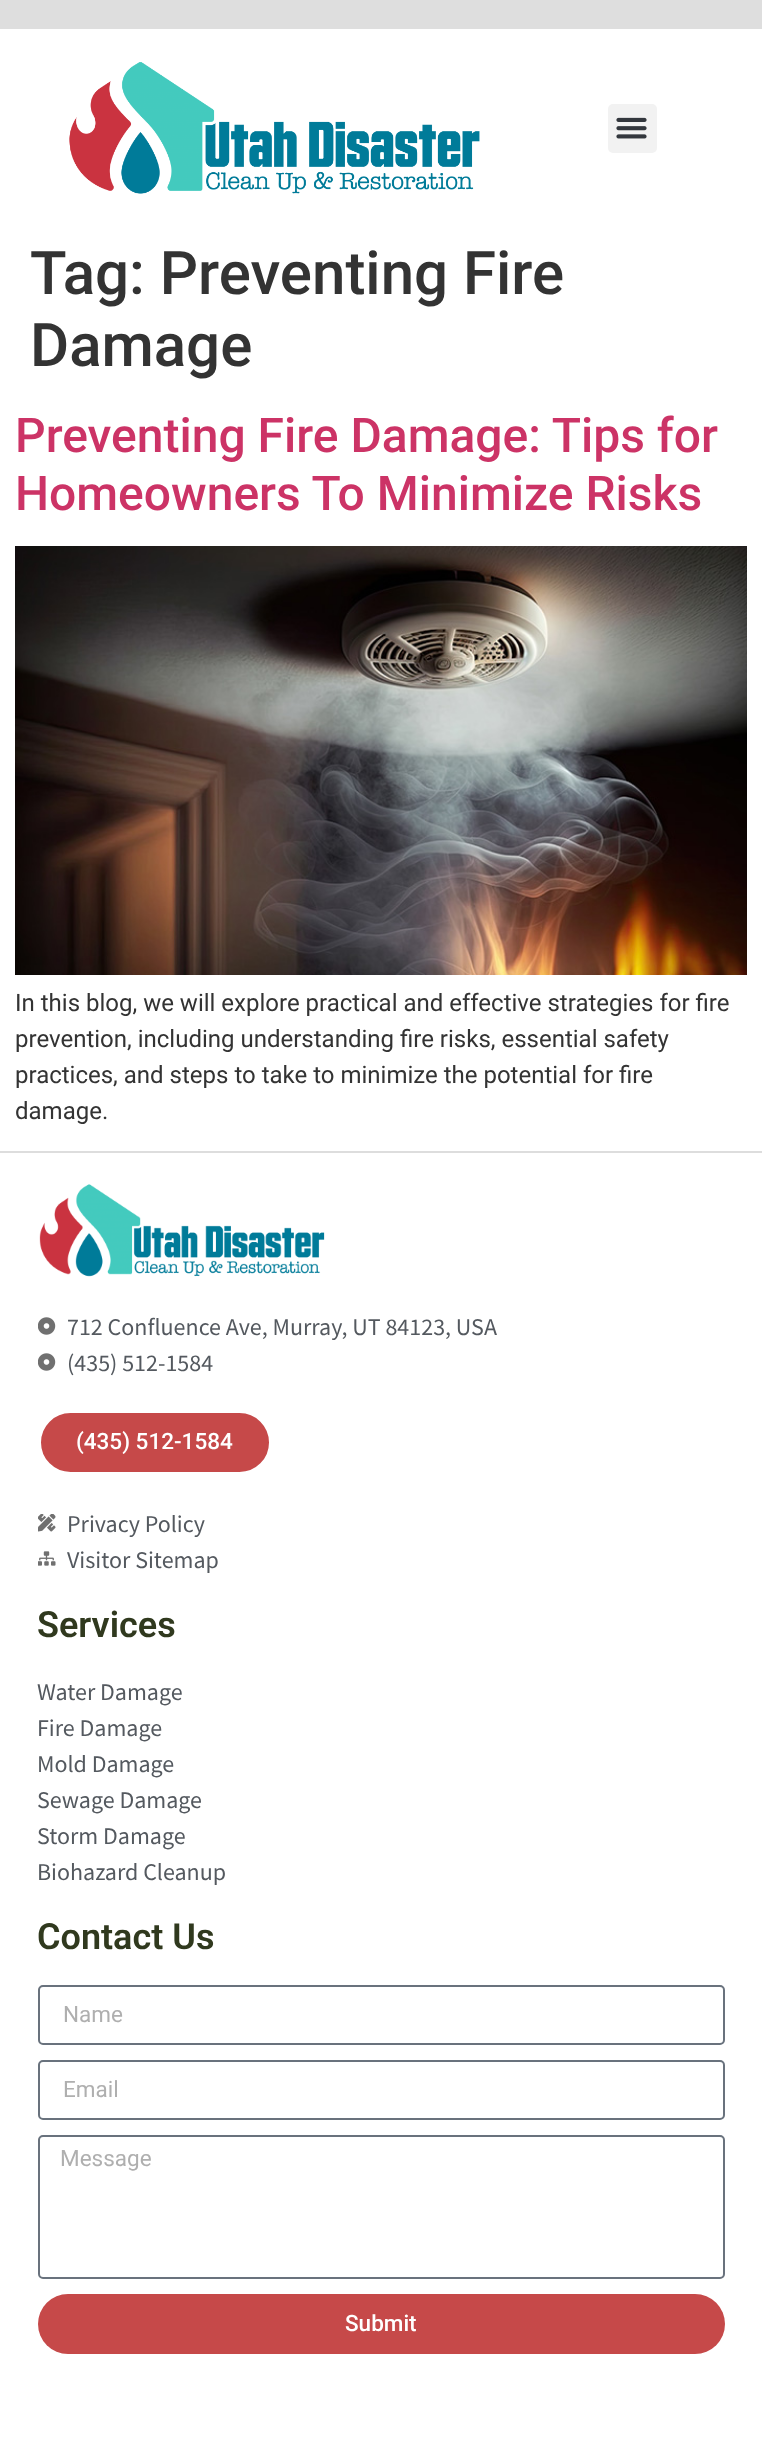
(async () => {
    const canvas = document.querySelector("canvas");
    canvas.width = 762;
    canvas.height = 2451;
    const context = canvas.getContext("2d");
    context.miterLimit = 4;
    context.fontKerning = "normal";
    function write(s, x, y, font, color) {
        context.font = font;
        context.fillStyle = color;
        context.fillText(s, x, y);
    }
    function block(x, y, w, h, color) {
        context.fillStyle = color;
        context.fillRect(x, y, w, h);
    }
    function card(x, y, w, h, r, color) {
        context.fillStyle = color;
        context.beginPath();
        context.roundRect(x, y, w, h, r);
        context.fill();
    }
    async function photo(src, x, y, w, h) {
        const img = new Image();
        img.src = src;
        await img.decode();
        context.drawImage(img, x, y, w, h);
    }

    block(0, 0, 762, 2451, "rgb(255, 255, 255)");
    block(0, 0, 762, 29, "rgb(222, 222, 222)");
    await photo("media/1.png", 69, 62, 411, 132);
    card(608, 104, 49, 49, 5, "rgb(242, 242, 242)");
    await photo("media/2.png", 616, 117, 31, 22);
    write("Tag: Preventing Fire", 30, 294, "500 60px Roboto", "rgb(51, 51, 51)");
    write("Damage", 30, 366, "500 60px Roboto", "rgb(51, 51, 51)");
    write("Preventing Fire Damage: Tips for", 15, 452, "500 48px Roboto", "rgb(204, 51, 102)");
    write("Homeowners To Minimize Risks", 15, 510, "500 48px Roboto", "rgb(204, 51, 102)");
    await photo("media/3.png", 15, 546, 732, 429);
    write("In this blog, we will explore practical and effective strategies for fire", 15, 1011, "24px Roboto", "rgb(51, 51, 51)");
    write("prevention, including understanding fire risks, essential safety", 15, 1047, "24px Roboto", "rgb(51, 51, 51)");
    write("practices, and steps to take to minimize the potential for fire", 15, 1083, "24px Roboto", "rgb(51, 51, 51)");
    write("damage.", 15, 1119, "24px Roboto", "rgb(51, 51, 51)");
    block(0, 1151, 762, 2, "rgb(221, 221, 221)");
    await photo("media/4.png", 39, 1184, 286, 93);
    await photo("media/5.png", 38, 1317, 18, 18);
    write("712 Confluence Ave, Murray, UT 84123, USA", 67, 1335, "24px Source Sans Pro", "rgb(84, 89, 95)");
    await photo("media/5.png", 38, 1353, 18, 18);
    write("(435) 512-1584", 67, 1371, "24px Source Sans Pro", "rgb(84, 89, 95)");
    context.fillStyle = "rgb(198, 73, 73)";
    context.beginPath();
    context.roundRect(39.5, 1411.5, 231, 62, 31);
    context.fill();
    context.strokeStyle = "rgb(255, 255, 255)";
    context.lineWidth = 3;
    context.stroke();
    write("(435) 512-1584", 76, 1449, "500 22.5px Roboto", "rgb(255, 255, 255)");
    await photo("media/6.png", 38, 1514, 18, 18);
    write("Privacy Policy", 67, 1532, "24px Source Sans Pro", "rgb(84, 89, 95)");
    await photo("media/7.png", 38, 1551, 18, 15);
    write("Visitor Sitemap", 67, 1568, "24px Source Sans Pro", "rgb(84, 89, 95)");
    write("Services", 37, 1637, "600 36px Roboto", "rgb(48, 57, 30)");
    write("Water Damage", 37, 1700, "24px Source Sans Pro", "rgb(84, 89, 95)");
    write("Fire Damage", 37, 1736, "24px Source Sans Pro", "rgb(84, 89, 95)");
    write("Mold Damage", 37, 1772, "24px Source Sans Pro", "rgb(84, 89, 95)");
    write("Sewage Damage", 37, 1808, "24px Source Sans Pro", "rgb(84, 89, 95)");
    write("Storm Damage", 37, 1844, "24px Source Sans Pro", "rgb(84, 89, 95)");
    write("Biohazard Cleanup", 37, 1880, "24px Source Sans Pro", "rgb(84, 89, 95)");
    write("Contact Us", 37, 1949, "600 36px Roboto", "rgb(48, 57, 30)");
    context.beginPath();
    context.roundRect(39, 1986, 685, 58, 4);
    context.strokeStyle = "rgb(105, 114, 125)";
    context.lineWidth = 2;
    context.stroke();
    write("Name", 63, 2022, "22.5px Roboto", "rgb(175, 175, 175)");
    context.beginPath();
    context.roundRect(39, 2061, 685, 58, 4);
    context.stroke();
    write("Email", 63, 2097, "22.5px Roboto", "rgb(175, 175, 175)");
    context.beginPath();
    context.roundRect(39, 2136, 685, 142, 4);
    context.stroke();
    write("Message", 60, 2166, "22.5px Roboto", "rgb(175, 175, 175)");
    card(38, 2294, 687, 60, 30, "rgb(198, 73, 73)");
    write("Submit", 345, 2331, "500 22.5px Roboto", "rgb(255, 255, 255)");
})();
